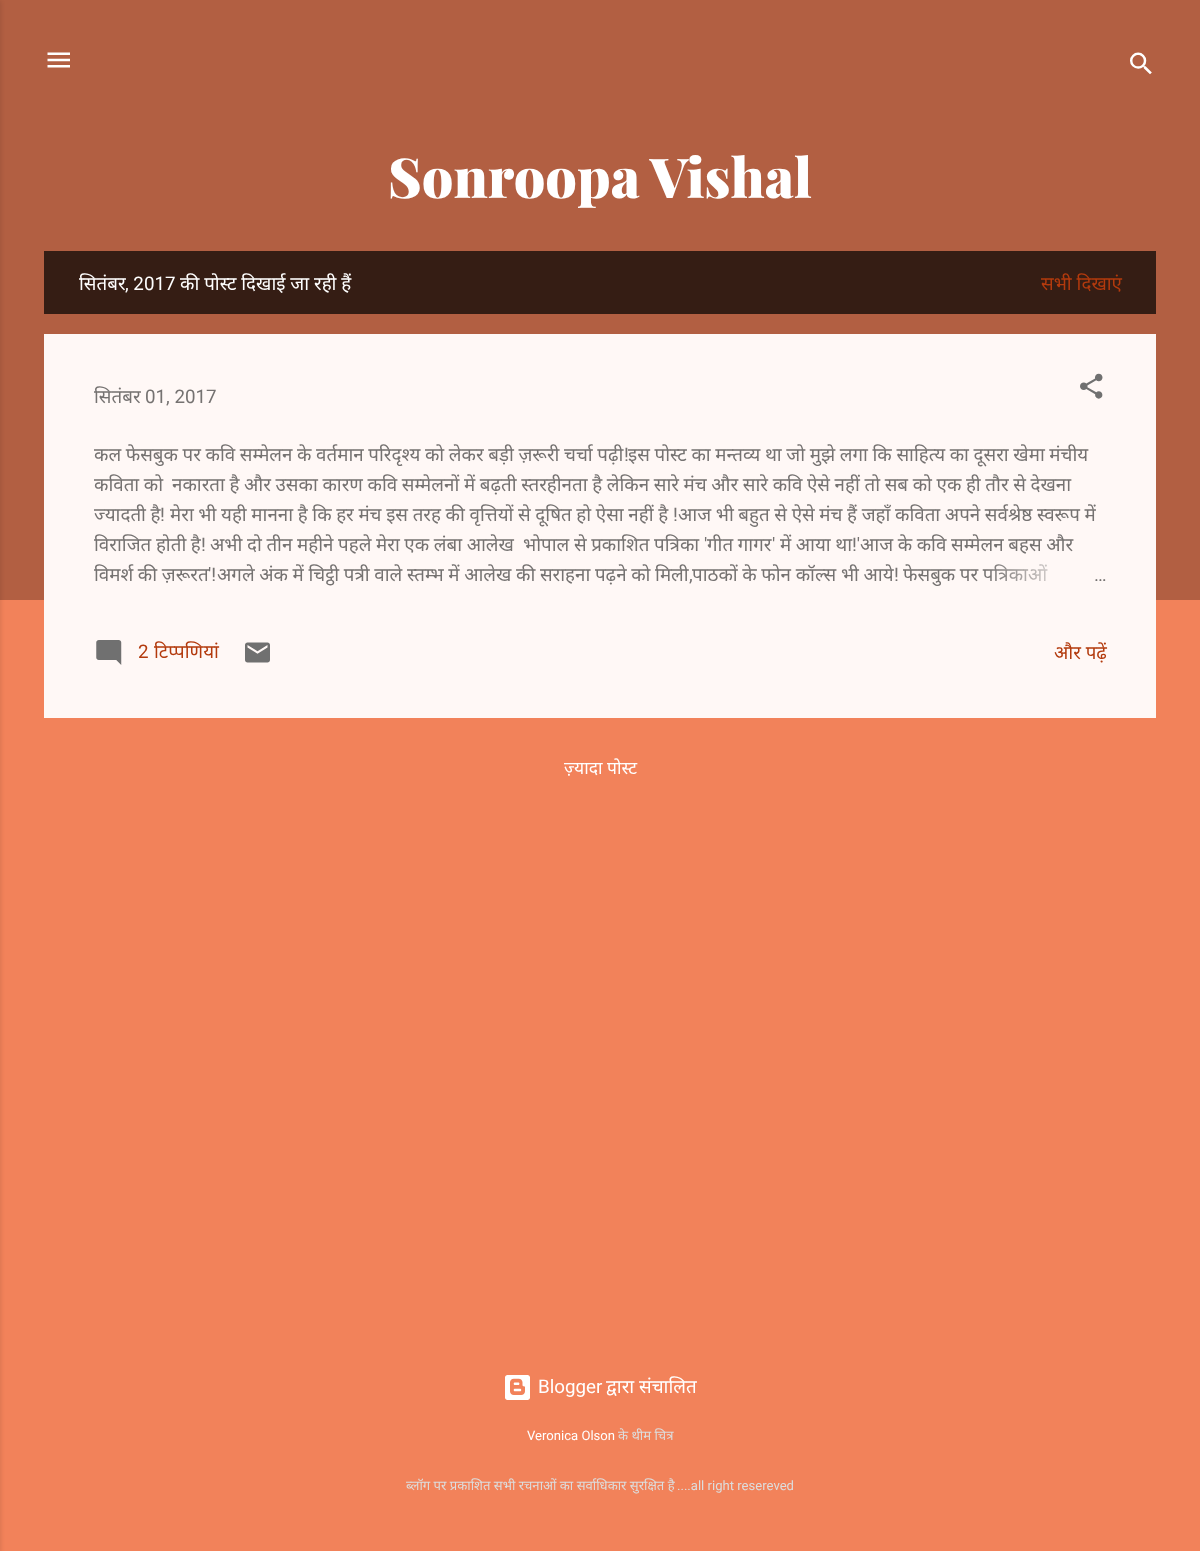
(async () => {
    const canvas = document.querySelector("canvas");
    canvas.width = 1200;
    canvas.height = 1551;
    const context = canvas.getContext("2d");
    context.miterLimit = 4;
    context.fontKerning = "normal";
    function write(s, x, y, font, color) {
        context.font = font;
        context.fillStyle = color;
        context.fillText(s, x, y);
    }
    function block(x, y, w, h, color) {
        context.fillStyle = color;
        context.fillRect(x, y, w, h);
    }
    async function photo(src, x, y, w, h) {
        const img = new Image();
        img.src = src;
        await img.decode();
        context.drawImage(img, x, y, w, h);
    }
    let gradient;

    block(0, 0, 1200, 1551, "rgb(242, 130, 90)");
    block(0, 0, 1200, 600, "rgb(178, 95, 66)");
    context.fillStyle = "rgba(0, 0, 0, 0.1)";
    context.filter = "blur(2px)";
    context.beginPath();
    context.rect(-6, 1, 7, 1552);
    context.fill();
    context.filter = "none";
    await photo("media/1.png", 47, 52, 23, 16);
    await photo("media/2.png", 1130, 52, 22, 23);
    write("Sonroopa Vishal", 388, 198, "900 55px Playfair Display", "rgb(255, 255, 255)");
    block(44, 251, 1112, 63, "rgb(53, 29, 20)");
    write("सितंबर", 79, 290, "18.75px Noto Sans", "rgb(255, 255, 255)");
    write(", 2017", 125, 290, "18.75px Roboto", "rgb(255, 255, 255)");
    write("की पोस्ट दिखाई जा रही हैं", 180, 290, "18.75px Noto Sans", "rgb(255, 255, 255)");
    write("सभी दिखाएं", 1041, 290, "18.75px Noto Sans", "rgb(179, 58, 13)");
    block(44, 334, 1112, 384, "rgb(255, 248, 246)");
    write("सितंबर", 94, 403, "18.75px Noto Sans", "rgb(117, 114, 113)");
    write("01, 2017", 145, 403, "18.75px Roboto", "rgb(117, 114, 113)");
    await photo("media/3.png", 1080, 373, 23, 26);
    context.wordSpacing = "-0.25px";
    write("कल फेसबुक पर कवि सम्मेलन के वर्तमान परिदृश्य को लेकर बड़ी ज़रूरी चर्चा पढ़ी इस पोस्ट का मन्तव्य था जो मुझे लगा कि साहित्य का दूसरा खेमा मंचीय", 94, 461, "18.75px Noto Sans", "rgb(117, 114, 113)");
    context.wordSpacing = "0px";
    write("!", 624, 461, "18.75px Roboto", "rgb(117, 114, 113)");
    context.wordSpacing = "-0.25px";
    write("कविता को", 94, 491, "18.75px Noto Sans", "rgb(117, 114, 113)");
    write("नकारता है और उसका कारण कवि सम्मेलनों में बढ़ती स्तरहीनता है लेकिन सारे मंच और सारे कवि ऐसे नहीं तो सब को एक ही तौर से देखना", 172, 491, "18.75px Noto Sans", "rgb(117, 114, 113)");
    write("ज्यादती है", 94, 521, "18.75px Noto Sans", "rgb(117, 114, 113)");
    context.wordSpacing = "0px";
    write("!", 160, 521, "18.75px Roboto", "rgb(117, 114, 113)");
    context.wordSpacing = "-0.25px";
    write("मेरा भी यही मानना है कि हर मंच इस तरह की वृत्तियों से दूषित हो ऐसा नहीं है", 170, 521, "18.75px Noto Sans", "rgb(117, 114, 113)");
    write("आज भी बहुत से ऐसे मंच हैं जहाँ कविता अपने सर्वश्रेष्ठ स्वरूप में", 678, 521, "18.75px Noto Sans", "rgb(117, 114, 113)");
    context.wordSpacing = "0px";
    write("!", 673, 521, "18.75px Roboto", "rgb(117, 114, 113)");
    context.wordSpacing = "-0.25px";
    write("विराजित होती है", 94, 551, "18.75px Noto Sans", "rgb(117, 114, 113)");
    write("अभी दो तीन महीने पहले मेरा एक लंबा आलेख", 210, 551, "18.75px Noto Sans", "rgb(117, 114, 113)");
    write("भोपाल से प्रकाशित पत्रिका", 523, 551, "18.75px Noto Sans", "rgb(117, 114, 113)");
    context.wordSpacing = "0px";
    write("'", 704, 551, "18.75px Roboto", "rgb(117, 114, 113)");
    context.wordSpacing = "-0.25px";
    write("गीत गागर", 707, 551, "18.75px Noto Sans", "rgb(117, 114, 113)");
    context.wordSpacing = "0px";
    write("'", 772, 551, "18.75px Roboto", "rgb(117, 114, 113)");
    context.wordSpacing = "-0.25px";
    write("में आया था", 780, 551, "18.75px Noto Sans", "rgb(117, 114, 113)");
    write("आज के कवि सम्मेलन बहस और", 860, 551, "18.75px Noto Sans", "rgb(117, 114, 113)");
    context.wordSpacing = "0px";
    write("!", 201, 551, "18.75px Roboto", "rgb(117, 114, 113)");
    write("!'", 852, 551, "18.75px Roboto", "rgb(117, 114, 113)");
    context.wordSpacing = "-0.25px";
    write("विमर्श की ज़रूरत", 94, 581, "18.75px Noto Sans", "rgb(117, 114, 113)");
    context.wordSpacing = "0px";
    write("'!", 208, 581, "18.75px Roboto", "rgb(117, 114, 113)");
    context.wordSpacing = "-0.25px";
    write("अगले अंक में चिट्ठी पत्री वाले स्तम्भ में आलेख की सराहना पढ़ने को मिली", 217, 581, "18.75px Noto Sans", "rgb(117, 114, 113)");
    write("पाठकों के फोन कॉल्स भी आये", 692, 581, "18.75px Noto Sans", "rgb(117, 114, 113)");
    context.wordSpacing = "0px";
    write("!", 894, 581, "18.75px Roboto", "rgb(117, 114, 113)");
    context.wordSpacing = "-0.25px";
    write("फेसबुक पर पत्रिकाओं", 903, 581, "18.75px Noto Sans", "rgb(117, 114, 113)");
    context.wordSpacing = "0px";
    write(",", 689, 581, "18.75px Roboto", "rgb(117, 114, 113)");
    gradient = context.createLinearGradient(1106, 575, 986, 575);
    gradient.addColorStop(0, "rgb(255, 248, 246)");
    gradient.addColorStop(0.2, "rgb(255, 248, 246)");
    gradient.addColorStop(1, "rgba(255, 248, 246, 0)");
    context.fillStyle = gradient;
    context.fillRect(988, 564, 60, 17);
    write("…", 1094, 581, "18.75px Roboto", "rgb(117, 114, 113)");
    await photo("media/4.png", 96, 640, 26, 25);
    write("2", 138, 658, "18.75px Roboto", "rgb(179, 58, 13)");
    write("टिप्पणियां", 154, 658, "18.75px Noto Sans", "rgb(179, 58, 13)");
    await photo("media/5.png", 245, 642, 25, 21);
    write("और पढ़ें", 1054, 659, "18.75px Noto Sans", "rgb(179, 58, 13)");
    write("ज़्यादा पोस्ट", 564, 774, "17.5px Noto Sans", "rgb(255, 255, 255)");
    await photo("media/6.png", 505, 1375, 25, 25);
    write("Blogger", 538, 1393, "18.75px Roboto", "rgb(255, 255, 255)");
    write("द्वारा संचालित", 606, 1393, "18.75px Noto Sans", "rgb(255, 255, 255)");
    write("Veronica Olson", 527, 1440, "13.1px Roboto", "rgb(255, 255, 255)");
    write("के थीम चित्र", 618, 1440, "13.1px Noto Sans", "rgb(221, 221, 221)");
    write("ब्लॉग पर प्रकाशित सभी रचनाओं का सर्वाधिकार सुरक्षित है", 406, 1490, "13.1px Noto Sans", "rgb(221, 221, 221)");
    write("....all right resereved", 677, 1490, "13.1px Roboto", "rgb(221, 221, 221)");
})();
